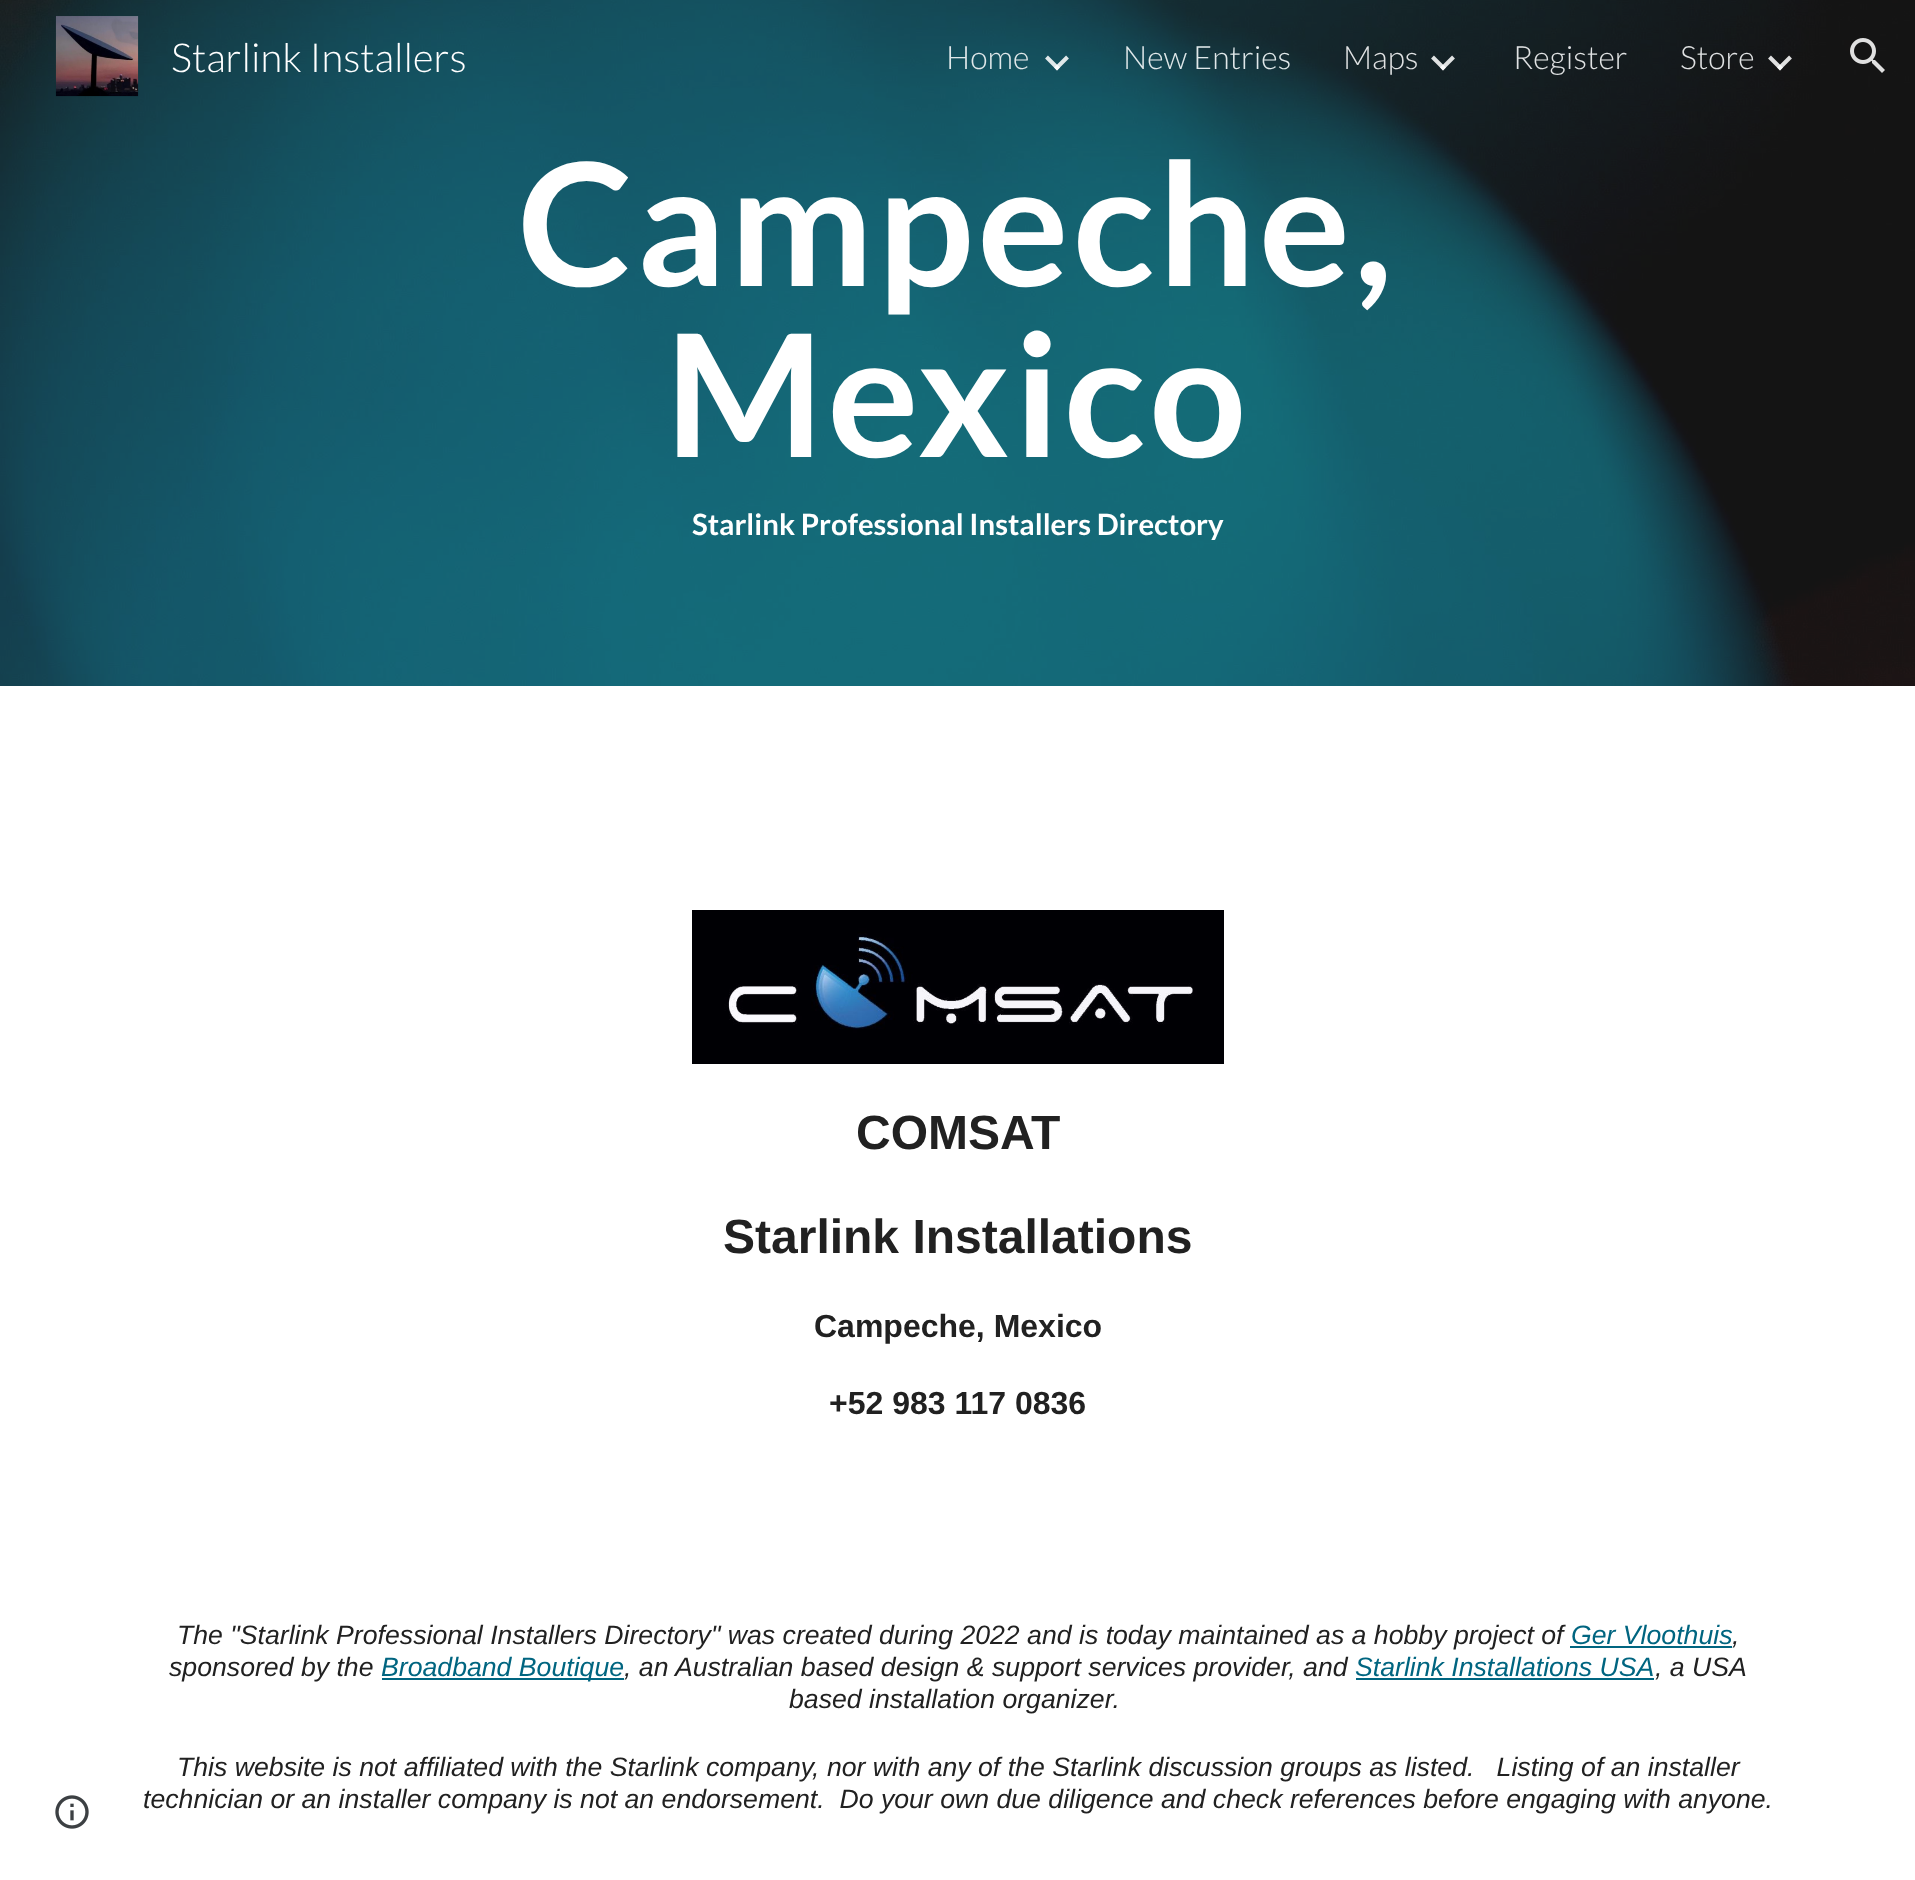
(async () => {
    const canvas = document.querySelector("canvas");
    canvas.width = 1915;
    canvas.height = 1880;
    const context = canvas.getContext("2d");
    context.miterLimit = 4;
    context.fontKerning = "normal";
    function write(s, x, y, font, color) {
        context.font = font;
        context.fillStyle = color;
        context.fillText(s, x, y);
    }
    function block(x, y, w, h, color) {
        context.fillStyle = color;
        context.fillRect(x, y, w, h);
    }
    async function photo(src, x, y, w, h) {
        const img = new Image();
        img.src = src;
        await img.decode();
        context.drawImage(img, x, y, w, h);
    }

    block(0, 0, 1915, 1880, "rgb(255, 255, 255)");
    await photo("media/3.png", 0, 0, 1915, 686);
    await photo("media/1.png", 55, 16, 84, 81);
    write("Starlink Installers", 171, 72, "300 40px Lato", "rgb(255, 255, 255)");
    write("Home", 946, 69, "300 32px Lato", "rgb(224, 232, 234)");
    context.beginPath();
    context.moveTo(1046.5, 57);
    context.lineTo(1058.5, 69);
    context.strokeStyle = "rgba(255, 255, 255, 0.87)";
    context.lineWidth = 4;
    context.stroke();
    context.beginPath();
    context.moveTo(1055.5, 69);
    context.lineTo(1067.5, 57);
    context.stroke();
    write("New Entries", 1123, 69, "300 32px Lato", "rgb(224, 232, 234)");
    write("Maps", 1343, 69, "300 32px Lato", "rgb(224, 226, 227)");
    context.beginPath();
    context.moveTo(1432.5, 57);
    context.lineTo(1444.5, 69);
    context.stroke();
    context.beginPath();
    context.moveTo(1441.5, 69);
    context.lineTo(1453.5, 57);
    context.stroke();
    write("Register", 1513, 69, "300 32px Lato", "rgb(224, 226, 227)");
    write("Store", 1680, 69, "300 32px Lato", "rgb(224, 226, 227)");
    context.beginPath();
    context.moveTo(1769.5, 57);
    context.lineTo(1781.5, 69);
    context.stroke();
    context.beginPath();
    context.moveTo(1778.5, 69);
    context.lineTo(1790.5, 57);
    context.stroke();
    await photo("media/2.png", 1850, 38, 35, 35);
    context.letterSpacing = "4px";
    write("Campeche,", 518, 286, "bold 170.5px Lato", "rgb(255, 255, 255)");
    write("Mexico", 665, 457, "bold 170.5px Lato", "rgb(255, 255, 255)");
    context.letterSpacing = "0px";
    write("Starlink Professional Installers Directory", 692, 535, "bold 29.3px Lato", "rgb(255, 255, 255)");
    await photo("media/4.png", 692, 910, 532, 154);
    write("COMSAT", 856, 1149, "bold 48px Liberation Sans", "rgb(33, 33, 33)");
    write("Starlink Installations", 723, 1253, "bold 48px Liberation Sans", "rgb(33, 33, 33)");
    write("Campeche, Mexico", 814, 1337, "bold 32px Liberation Sans", "rgb(33, 33, 33)");
    write("+52 983 117 0836", 829, 1414, "bold 32px Liberation Sans", "rgb(33, 33, 33)");
    await photo("media/5.png", 55, 1795, 34, 34);
    write("The \"Starlink Professional Installers Directory\" was created during 2022 and is today maintained as a hobby project of", 177, 1644, "italic 26.67px Liberation Sans", "rgb(33, 33, 33)");
    write("Ger Vloothuis", 1571, 1644, "italic 26.67px Liberation Sans", "rgb(0, 101, 128)");
    block(1570, 1646, 162, 2, "rgb(0, 101, 128)");
    write(",", 1732, 1644, "italic 26.67px Liberation Sans", "rgb(33, 33, 33)");
    write("sponsored by the", 169, 1676, "italic 26.67px Liberation Sans", "rgb(33, 33, 33)");
    block(382, 1678, 242, 2, "rgb(0, 101, 128)");
    write("Broadband Boutique", 381, 1676, "italic 26.67px Liberation Sans", "rgb(0, 101, 128)");
    write(", an Australian based design & support services provider, and", 624, 1676, "italic 26.67px Liberation Sans", "rgb(33, 33, 33)");
    write("Starlink Installations USA", 1355, 1676, "italic 26.67px Liberation Sans", "rgb(0, 101, 128)");
    block(1356, 1678, 298, 2, "rgb(0, 101, 128)");
    write(", a USA", 1655, 1676, "italic 26.67px Liberation Sans", "rgb(33, 33, 33)");
    write("based installation organizer.", 789, 1708, "italic 26.67px Liberation Sans", "rgb(33, 33, 33)");
    write("This website is not affiliated with the Starlink company, nor with any of the Starlink discussion groups as listed.   Listing of an installer", 177, 1776, "italic 26.67px Liberation Sans", "rgb(33, 33, 33)");
    write("technician or an installer company is not an endorsement.  Do your own due diligence and check references before engaging with anyone.", 143, 1808, "italic 26.67px Liberation Sans", "rgb(33, 33, 33)");
})();
